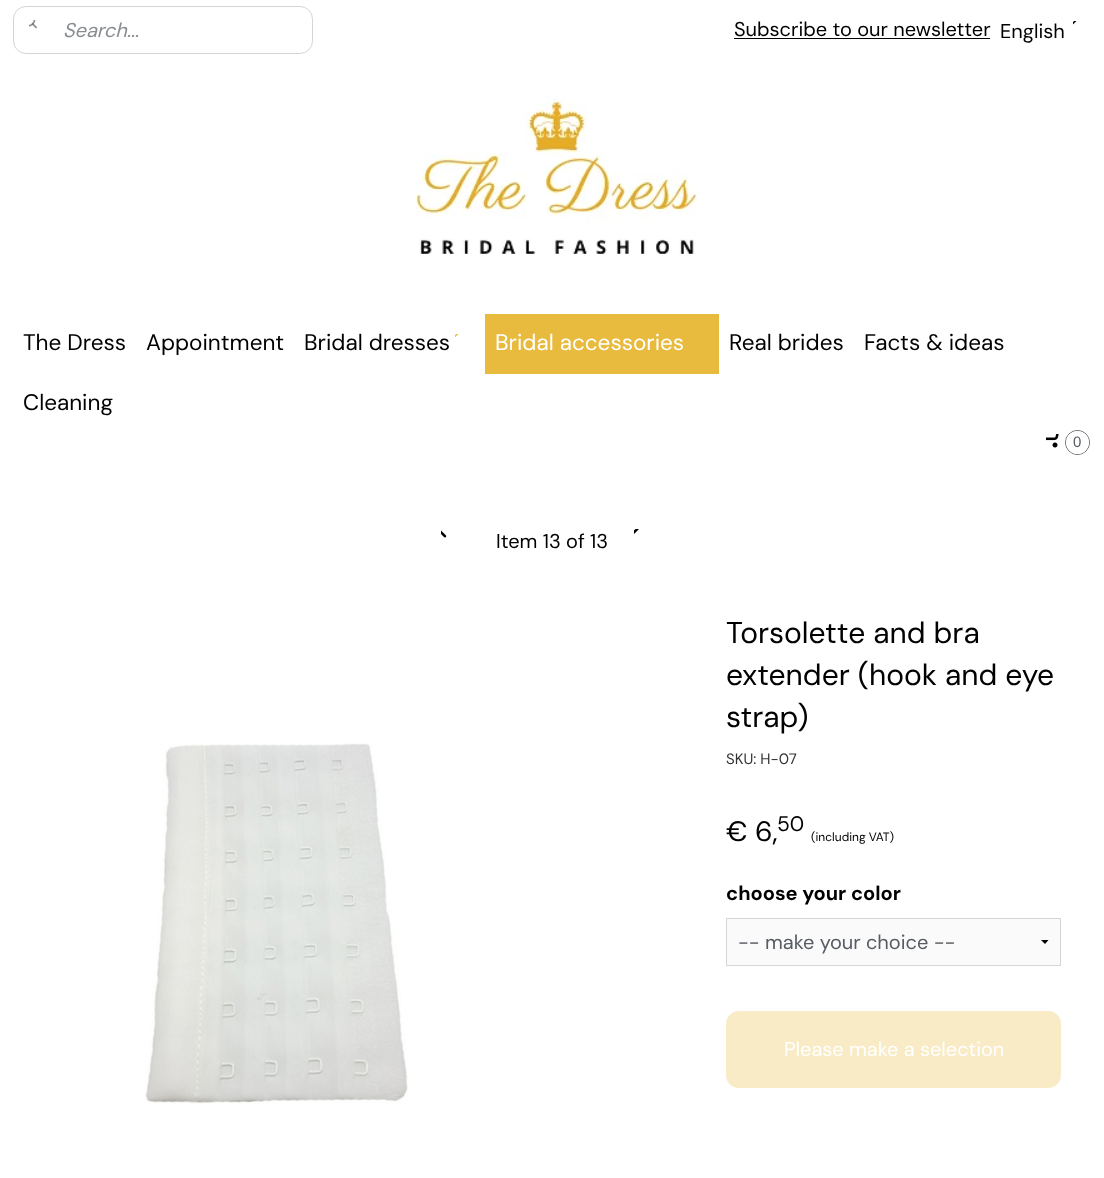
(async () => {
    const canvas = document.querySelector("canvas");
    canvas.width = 1104;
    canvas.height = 1178;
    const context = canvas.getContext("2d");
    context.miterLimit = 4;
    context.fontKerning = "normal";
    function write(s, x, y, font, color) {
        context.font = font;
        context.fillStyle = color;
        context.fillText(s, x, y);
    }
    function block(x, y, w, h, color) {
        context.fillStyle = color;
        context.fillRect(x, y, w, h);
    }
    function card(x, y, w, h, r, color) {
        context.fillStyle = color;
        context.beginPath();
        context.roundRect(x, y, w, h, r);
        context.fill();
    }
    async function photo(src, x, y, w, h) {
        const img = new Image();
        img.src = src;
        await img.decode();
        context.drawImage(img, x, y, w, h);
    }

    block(0, 0, 1104, 1178, "rgb(255, 255, 255)");
    context.beginPath();
    context.roundRect(13.5, 6.5, 299, 47, 12.5);
    context.strokeStyle = "rgb(211, 213, 217)";
    context.stroke();
    await photo("media/1.png", 29, 20, 8, 9);
    write("Search...", 63, 37, "italic 20px DM Sans", "rgb(137, 140, 145)");
    write("Subscribe to our newsletter", 734, 36, "20px DM Sans", "rgb(0, 0, 0)");
    block(734, 38, 256, 1, "rgb(0, 0, 0)");
    write("English", 1000, 38, "20px DM Sans", "rgb(0, 0, 0)");
    await photo("media/2.png", 1073, 21, 4, 4);
    await photo("media/3.png", 415, 96, 283, 159);
    write("The Dress", 23, 350, "22.5px DM Sans", "rgb(0, 0, 0)");
    write("Appointment", 146, 350, "22.5px DM Sans", "rgb(0, 0, 0)");
    write("Bridal dresses", 304, 350, "22.5px DM Sans", "rgb(0, 0, 0)");
    await photo("media/4.png", 455, 334, 4, 3);
    block(485, 314, 234, 60, "rgb(232, 187, 63)");
    write("Bridal accessories", 495, 350, "22.5px DM Sans", "rgb(255, 255, 255)");
    write("Real brides", 729, 350, "22.5px DM Sans", "rgb(0, 0, 0)");
    write("Facts & ideas", 864, 350, "22.5px DM Sans", "rgb(0, 0, 0)");
    write("Cleaning", 23, 410, "22.5px DM Sans", "rgb(0, 0, 0)");
    await photo("media/5.png", 1046, 434, 13, 14);
    context.beginPath();
    context.arc(1077.5, 442.5, 12, 0, Math.PI * 2);
    context.strokeStyle = "rgb(87, 91, 98)";
    context.stroke();
    context.fillStyle = "rgb(255, 255, 255)";
    context.beginPath();
    context.arc(1077.5, 442.5, 11.5, 0, Math.PI * 2);
    context.fill();
    write("0", 1073, 447, "15px Liberation Sans", "rgb(87, 91, 98)");
    await photo("media/6.png", 441, 530, 6, 8);
    write("Item 13 of 13", 496, 548, "20px DM Sans", "rgb(0, 0, 0)");
    await photo("media/7.png", 634, 529, 5, 5);
    await photo("media/8.png", 145, 743, 263, 362);
    write("Torsolette and bra", 726, 643, "30px DM Sans", "rgb(0, 0, 0)");
    write("extender (hook and eye", 726, 685, "30px DM Sans", "rgb(0, 0, 0)");
    write("strap)", 726, 727, "30px DM Sans", "rgb(0, 0, 0)");
    write("SKU: H-07", 726, 764, "15px DM Sans", "rgb(51, 51, 51)");
    write("€ 6,", 726, 841, "28px DM Sans", "rgb(0, 0, 0)");
    write("50", 777, 831, "21px DM Sans", "rgb(0, 0, 0)");
    write("(including VAT)", 811, 841, "12px DM Sans", "rgb(0, 0, 0)");
    write("choose your color", 726, 900, "bold 20px DM Sans", "rgb(0, 0, 0)");
    block(727, 919, 333, 46, "rgb(250, 250, 250)");
    context.fillStyle = "rgb(0, 0, 0)";
    context.beginPath();
    context.moveTo(1048.5, 940);
    context.lineTo(1045, 944);
    context.lineTo(1041, 940);
    context.closePath();
    context.fill();
    context.strokeStyle = "rgb(211, 213, 217)";
    context.strokeRect(726.5, 918.5, 334, 47);
    write("-- make your choice --", 738, 949, "20px DM Sans", "rgb(87, 91, 98)");
    card(726, 1011, 335, 77, 13, "rgb(248, 235, 197)");
    write("Please make a selection", 784, 1056, "20px DM Sans", "rgb(255, 255, 255)");
})();
